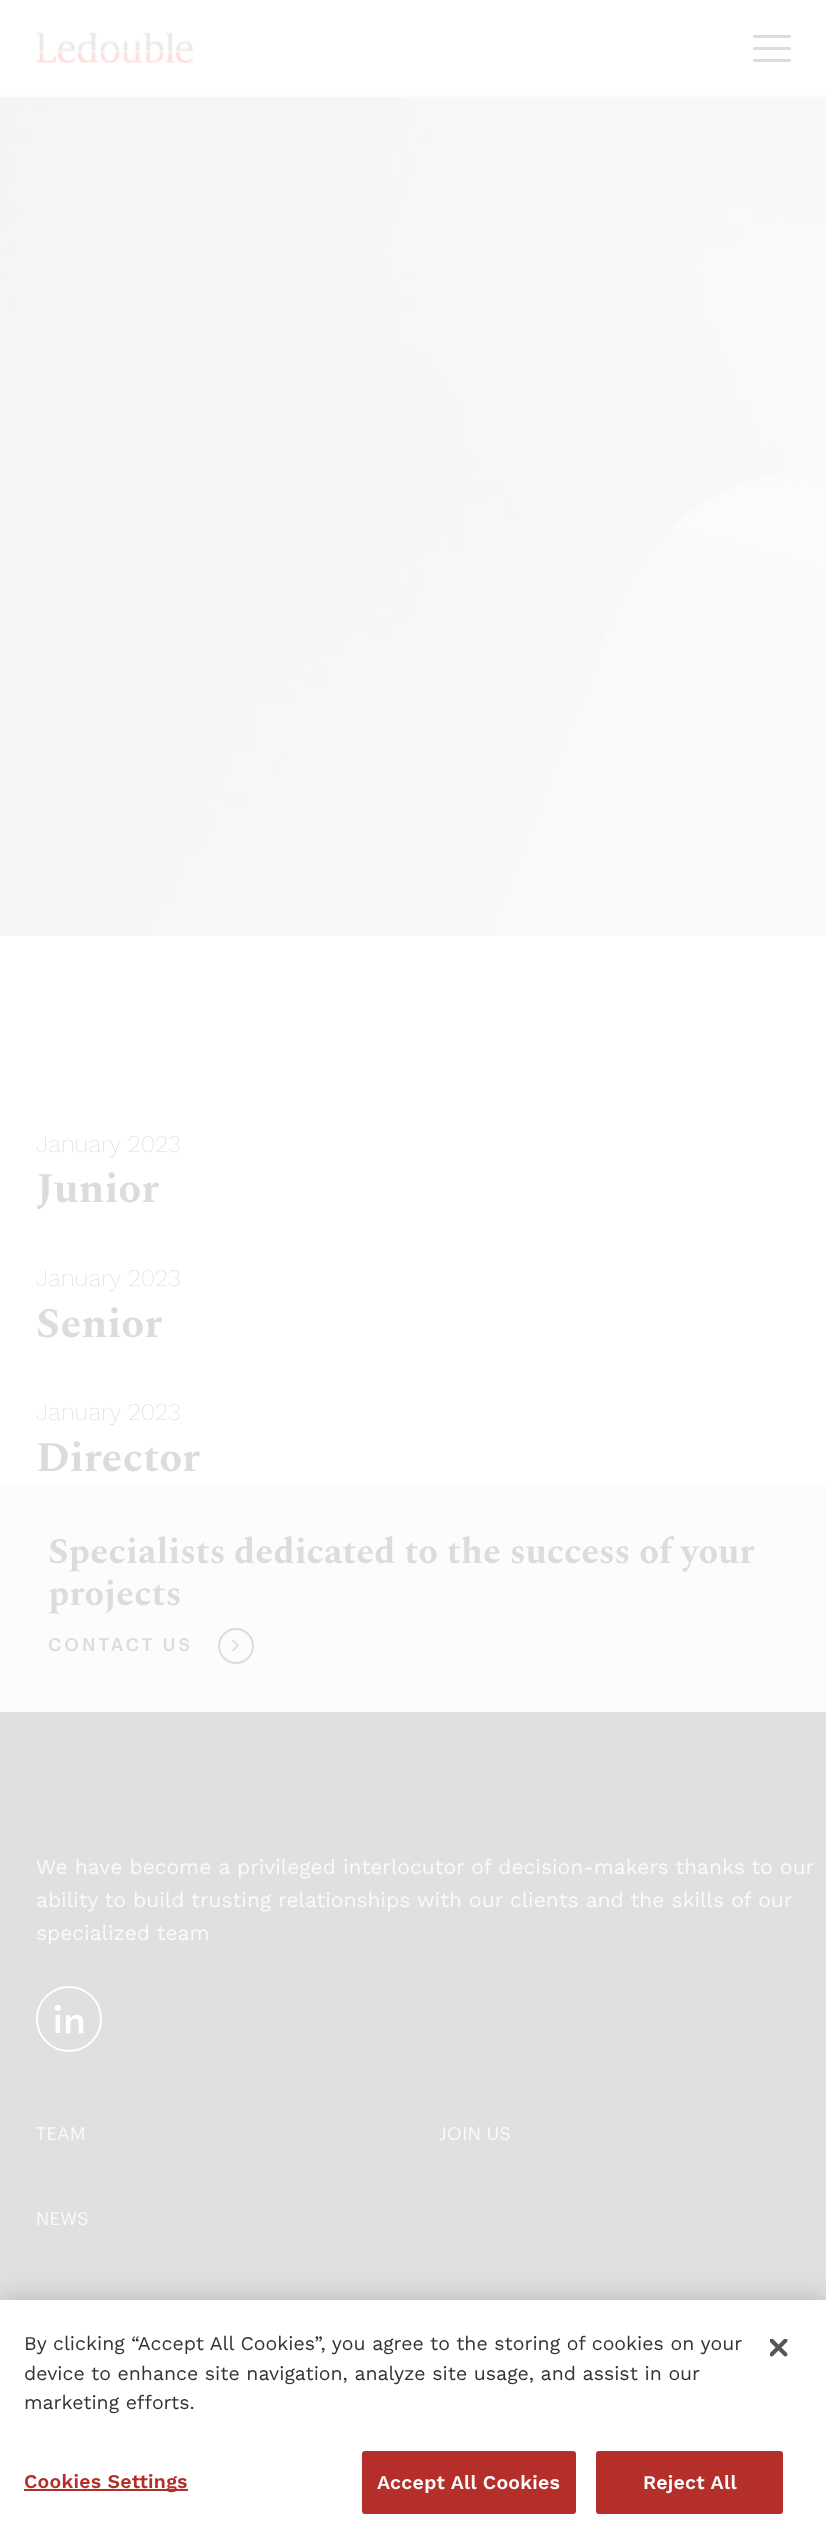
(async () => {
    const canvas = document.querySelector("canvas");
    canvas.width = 826;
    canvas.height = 2543;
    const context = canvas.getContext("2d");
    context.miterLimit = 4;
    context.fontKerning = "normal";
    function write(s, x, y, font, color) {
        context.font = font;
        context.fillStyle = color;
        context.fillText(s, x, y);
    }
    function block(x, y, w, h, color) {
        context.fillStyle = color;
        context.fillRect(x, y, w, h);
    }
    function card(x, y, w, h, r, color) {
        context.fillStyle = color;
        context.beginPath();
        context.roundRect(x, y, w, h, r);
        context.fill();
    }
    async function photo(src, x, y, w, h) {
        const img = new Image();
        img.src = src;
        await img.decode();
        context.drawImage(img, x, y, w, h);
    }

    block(0, 0, 826, 2543, "rgb(255, 255, 255)");
    block(0, 95, 826, 2, "rgb(252, 252, 253)");
    await photo("media/1.png", 36, 32, 158, 31);
    card(753, 35, 38, 3, 1.5, "rgb(220, 220, 220)");
    card(753, 47, 38, 3, 1.5, "rgb(220, 220, 220)");
    card(753, 59, 38, 3, 1.5, "rgb(220, 220, 220)");
    await photo("media/2.png", 0, 97, 826, 839);
    write("January 2023", 36, 1152, "200 24px Work Sans", "rgb(220, 220, 220)");
    write("Junior", 36, 1202, "bold 42px Spectral", "rgb(220, 220, 220)");
    write("January 2023", 36, 1286, "200 24px Work Sans", "rgb(220, 220, 220)");
    write("Senior", 36, 1337, "bold 42px Spectral", "rgb(220, 220, 220)");
    write("January 2023", 36, 1420, "200 24px Work Sans", "rgb(220, 220, 220)");
    write("Director", 36, 1471, "bold 42px Spectral", "rgb(220, 220, 220)");
    block(0, 1712, 826, 588, "rgb(224, 224, 224)");
    block(0, 1484, 826, 228, "rgb(252, 252, 253)");
    write("Specialists dedicated to the success of your", 48, 1563, "bold 36px Spectral", "rgb(220, 220, 220)");
    write("projects", 48, 1605, "bold 36px Spectral", "rgb(220, 220, 220)");
    context.letterSpacing = "3px";
    write("CONTACT US", 48, 1651, "500 18px Graphik", "rgb(220, 220, 220)");
    context.beginPath();
    context.arc(236, 1646, 17, 0, Math.PI * 2);
    context.strokeStyle = "rgb(220, 220, 220)";
    context.lineWidth = 2;
    context.stroke();
    await photo("media/3.png", 232, 1640, 7, 12);
    context.letterSpacing = "0px";
    write("We have become a privileged interlocutor of decision-makers thanks to our", 36, 1874, "21px Work Sans", "rgb(250, 250, 251)");
    write("ability to build trusting relationships with our clients and the skills of our", 36, 1907, "21px Work Sans", "rgb(250, 250, 251)");
    write("specialized team", 36, 1940, "21px Work Sans", "rgb(250, 250, 251)");
    context.beginPath();
    context.arc(69, 2019, 32, 0, Math.PI * 2);
    context.strokeStyle = "rgb(255, 255, 255)";
    context.stroke();
    await photo("media/4.png", 54, 2004, 30, 30);
    context.letterSpacing = "0.5px";
    write("TEAM", 36, 2140, "18px Graphik", "rgb(250, 250, 251)");
    write("JOIN US", 439, 2140, "18px Graphik", "rgb(250, 250, 251)");
    write("NEWS", 36, 2225, "18px Graphik", "rgb(250, 250, 251)");
    context.fillStyle = "rgba(0, 0, 0, 0.2)";
    context.filter = "blur(13.5px)";
    context.beginPath();
    context.rect(0, 2300, 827, 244);
    context.fill();
    context.filter = "none";
    block(0, 2300, 826, 243, "rgb(255, 255, 255)");
    context.letterSpacing = "0px";
    write("By clicking “Accept All Cookies”, you agree to the storing of cookies on your", 24, 2350, "19.5px Work Sans", "rgb(51, 51, 51)");
    write("device to enhance site navigation, analyze site usage, and assist in our", 24, 2380, "19.5px Work Sans", "rgb(51, 51, 51)");
    write("marketing efforts.", 24, 2409, "19.5px Work Sans", "rgb(51, 51, 51)");
    block(24, 2489, 164, 2, "rgb(180, 47, 42)");
    context.letterSpacing = "0.25px";
    write("Cookies Settings", 24, 2488, "600 19.5px Work Sans", "rgb(180, 47, 42)");
    context.beginPath();
    context.roundRect(363, 2452, 212, 61, 2);
    context.fill();
    context.strokeStyle = "rgb(180, 47, 42)";
    context.stroke();
    write("Accept All Cookies", 377, 2489, "600 19.5px Work Sans", "rgb(250, 250, 251)");
    context.fillStyle = "rgb(180, 47, 42)";
    context.beginPath();
    context.roundRect(597, 2452, 185, 61, 2);
    context.fill();
    context.stroke();
    write("Reject All", 643, 2489, "600 19.5px Work Sans", "rgb(250, 250, 251)");
    await photo("media/5.png", 770, 2339, 18, 18);
})();
